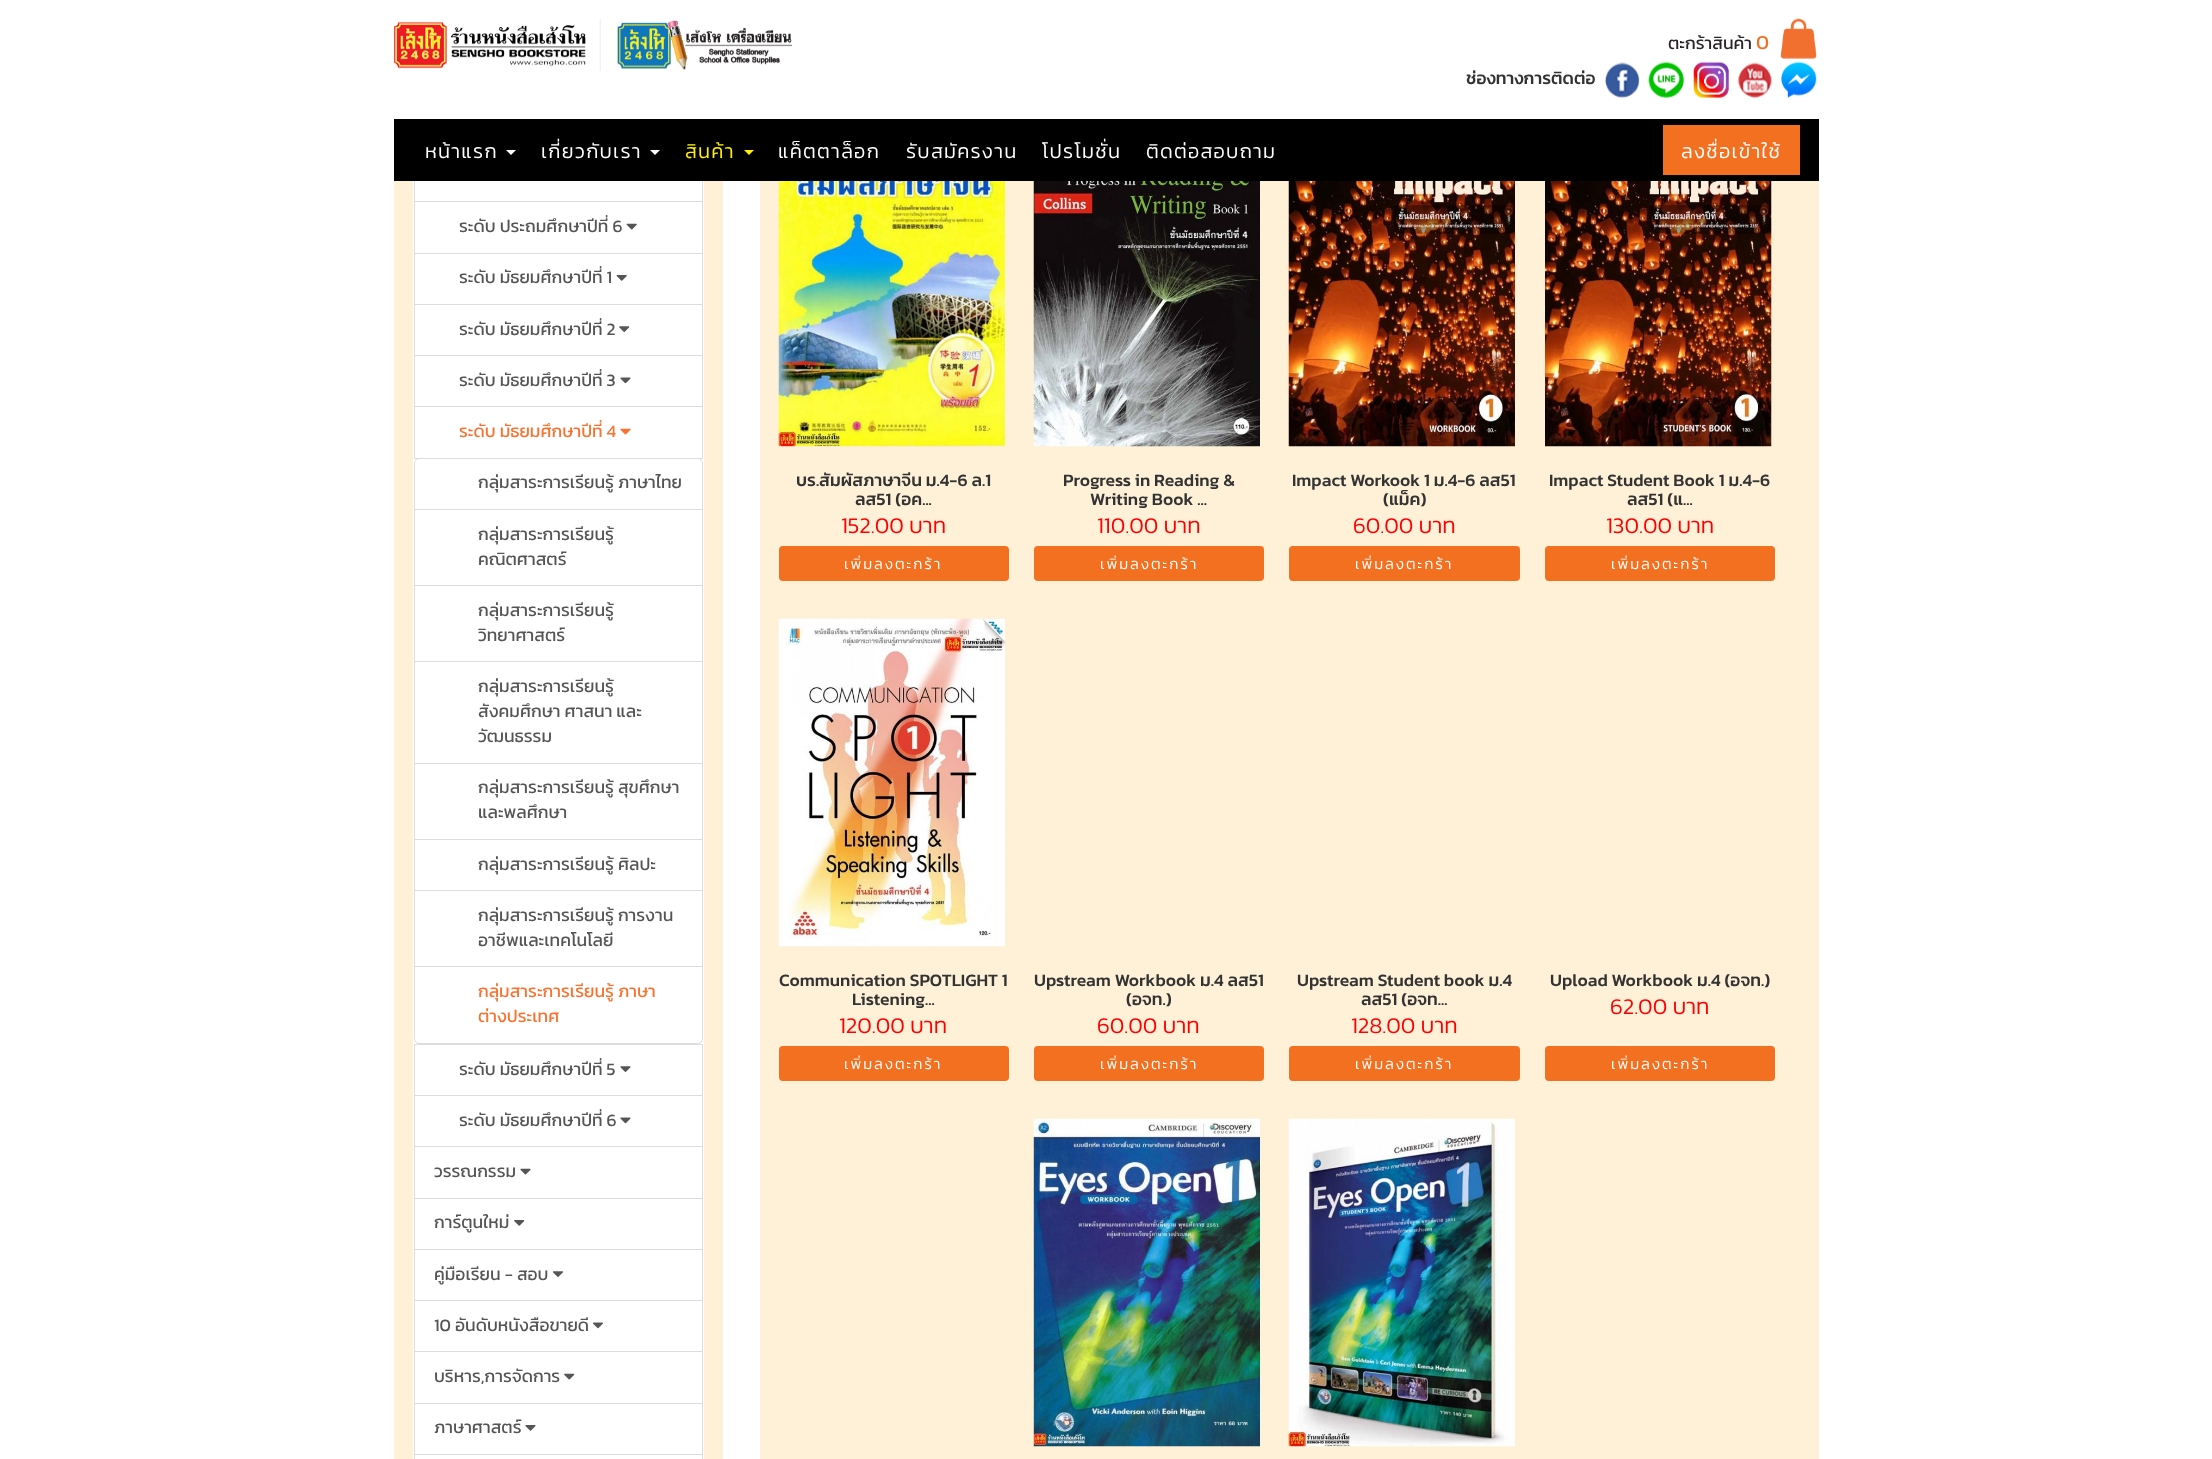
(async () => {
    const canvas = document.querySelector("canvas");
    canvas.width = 2212;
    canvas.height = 1459;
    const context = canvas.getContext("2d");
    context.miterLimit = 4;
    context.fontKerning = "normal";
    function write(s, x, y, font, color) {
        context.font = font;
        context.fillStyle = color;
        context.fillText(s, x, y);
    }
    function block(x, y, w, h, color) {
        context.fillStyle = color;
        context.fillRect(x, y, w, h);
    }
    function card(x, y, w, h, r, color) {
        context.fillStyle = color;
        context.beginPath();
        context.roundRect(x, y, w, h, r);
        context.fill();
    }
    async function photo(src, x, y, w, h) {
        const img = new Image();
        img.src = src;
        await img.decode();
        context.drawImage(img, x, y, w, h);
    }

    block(0, 0, 2212, 1459, "rgb(255, 255, 255)");
    await photo("media/1.png", 394, 19, 398, 52);
    write("ตะกร้าสินค้า", 1668, 49, "17.5px Kanit", "rgb(41, 37, 38)");
    write("0", 1756, 49, "20px Kanit", "rgb(243, 112, 33)");
    await photo("media/2.png", 1780, 18, 37, 41);
    write("ช่องทางการติดต่อ", 1466, 84, "500 17.5px Kanit", "rgb(51, 51, 51)");
    await photo("media/3.png", 1605, 62, 35, 36);
    await photo("media/4.png", 1648, 61, 36, 37);
    await photo("media/5.png", 1693, 61, 36, 37);
    await photo("media/6.png", 1737, 62, 36, 36);
    await photo("media/7.png", 1781, 61, 36, 37);
    block(394, 181, 329, 1278, "rgb(255, 240, 216)");
    block(413, 181, 291, 1278, "rgb(255, 255, 255)");
    context.strokeStyle = "rgb(221, 221, 221)";
    context.strokeRect(414.5, 150.5, 288, 52);
    block(394, 119, 1425, 62, "rgb(0, 0, 0)");
    context.letterSpacing = "1.25px";
    write("หน้าแรก", 425, 158, "300 20px Kanit", "rgb(255, 255, 255)");
    context.beginPath();
    context.moveTo(506, 150);
    context.lineTo(516, 150);
    context.lineTo(511, 155);
    context.closePath();
    context.fill();
    write("เกี่ยวกับเรา", 541, 158, "300 20px Kanit", "rgb(255, 255, 255)");
    context.beginPath();
    context.moveTo(650, 150);
    context.lineTo(660, 150);
    context.lineTo(655, 155);
    context.closePath();
    context.fill();
    write("สินค้า", 685, 158, "300 20px Kanit", "rgb(255, 240, 0)");
    context.beginPath();
    context.moveTo(744, 150);
    context.lineTo(754, 150);
    context.lineTo(749, 155);
    context.closePath();
    context.fill();
    write("แค็ตตาล็อก", 778, 158, "300 20px Kanit", "rgb(255, 255, 255)");
    write("รับสมัครงาน", 906, 158, "300 20px Kanit", "rgb(255, 255, 255)");
    write("โปรโมชั่น", 1042, 158, "300 20px Kanit", "rgb(255, 255, 255)");
    write("ติดต่อสอบถาม", 1146, 158, "300 20px Kanit", "rgb(255, 255, 255)");
    block(1663, 125, 137, 50, "rgb(243, 112, 33)");
    write("ลงชื่อเข้าใช้", 1681, 158, "300 20px Kanit", "rgb(255, 255, 255)");
    block(415, 202, 287, 1, "rgb(255, 255, 255)");
    context.strokeRect(414.5, 201.5, 288, 52);
    context.letterSpacing = "0px";
    write("ระดับ ประถมศึกษาปีที่ 6", 459, 232, "17.5px Kanit", "rgb(85, 85, 85)");
    await photo("media/8.png", 626, 223, 11, 7);
    context.strokeRect(414.5, 253.5, 288, 51);
    write("ระดับ มัธยมศึกษาปีที่ 1", 459, 283, "17.5px Kanit", "rgb(85, 85, 85)");
    await photo("media/9.png", 616, 275, 11, 6);
    context.strokeRect(414.5, 304.5, 288, 51);
    write("ระดับ มัธยมศึกษาปีที่ 2", 459, 335, "17.5px Kanit", "rgb(85, 85, 85)");
    await photo("media/10.png", 619, 326, 11, 6);
    context.strokeRect(414.5, 355.5, 288, 52);
    write("ระดับ มัธยมศึกษาปีที่ 3", 459, 386, "17.5px Kanit", "rgb(85, 85, 85)");
    await photo("media/11.png", 620, 377, 11, 7);
    block(415, 407, 287, 1, "rgb(255, 255, 255)");
    context.strokeRect(414.5, 406.5, 288, 52);
    write("ระดับ มัธยมศึกษาปีที่ 4", 459, 437, "17.5px Kanit", "rgb(251, 113, 47)");
    await photo("media/12.png", 620, 428, 11, 7);
    context.fillStyle = "rgb(255, 255, 255)";
    context.beginPath();
    context.roundRect(414.5, 458.5, 288, 51, [4.5, 4.5, 0, 0]);
    context.fill();
    context.stroke();
    write("กลุ่มสาระการเรียนรู้ ภาษาไทย", 478, 488, "17.5px Kanit", "rgb(85, 85, 85)");
    context.strokeRect(414.5, 509.5, 288, 76);
    write("กลุ่มสาระการเรียนรู้", 478, 540, "17.5px Kanit", "rgb(85, 85, 85)");
    write("คณิตศาสตร์", 478, 565, "17.5px Kanit", "rgb(85, 85, 85)");
    context.strokeRect(414.5, 585.5, 288, 77);
    write("กลุ่มสาระการเรียนรู้", 478, 616, "17.5px Kanit", "rgb(85, 85, 85)");
    write("วิทยาศาสตร์", 478, 641, "17.5px Kanit", "rgb(85, 85, 85)");
    block(415, 662, 287, 1, "rgb(255, 255, 255)");
    context.strokeRect(414.5, 661.5, 288, 102);
    write("กลุ่มสาระการเรียนรู้", 478, 692, "17.5px Kanit", "rgb(85, 85, 85)");
    write("สังคมศึกษา ศาสนา และ", 478, 717, "17.5px Kanit", "rgb(85, 85, 85)");
    write("วัฒนธรรม", 478, 742, "17.5px Kanit", "rgb(85, 85, 85)");
    context.strokeRect(414.5, 763.5, 288, 76);
    write("กลุ่มสาระการเรียนรู้ สุขศึกษา", 478, 793, "17.5px Kanit", "rgb(85, 85, 85)");
    write("และพลศึกษา", 478, 818, "17.5px Kanit", "rgb(85, 85, 85)");
    context.strokeRect(414.5, 839.5, 288, 51);
    write("กลุ่มสาระการเรียนรู้ ศิลปะ", 478, 870, "17.5px Kanit", "rgb(85, 85, 85)");
    context.strokeRect(414.5, 890.5, 288, 77);
    write("กลุ่มสาระการเรียนรู้ การงาน", 478, 921, "17.5px Kanit", "rgb(85, 85, 85)");
    write("อาชีพและเทคโนโลยี", 478, 946, "17.5px Kanit", "rgb(85, 85, 85)");
    context.fillStyle = "rgb(255, 255, 255)";
    context.beginPath();
    context.roundRect(414.5, 966.5, 288, 77, [0, 0, 4.5, 4.5]);
    context.fill();
    context.stroke();
    write("กลุ่มสาระการเรียนรู้ ภาษา", 478, 997, "17.5px Kanit", "rgb(251, 113, 47)");
    write("ต่างประเทศ", 478, 1022, "17.5px Kanit", "rgb(251, 113, 47)");
    context.strokeRect(414.5, 1044.5, 288, 51);
    write("ระดับ มัธยมศึกษาปีที่ 5", 459, 1075, "17.5px Kanit", "rgb(85, 85, 85)");
    await photo("media/13.png", 620, 1066, 11, 6);
    context.strokeRect(414.5, 1095.5, 288, 52);
    write("ระดับ มัธยมศึกษาปีที่ 6", 459, 1126, "17.5px Kanit", "rgb(85, 85, 85)");
    await photo("media/11.png", 620, 1117, 11, 7);
    block(415, 1147, 287, 1, "rgb(255, 255, 255)");
    context.strokeRect(414.5, 1146.5, 288, 52);
    write("วรรณกรรม", 434, 1177, "17.5px Kanit", "rgb(85, 85, 85)");
    await photo("media/14.png", 520, 1168, 11, 7);
    context.strokeRect(414.5, 1198.5, 288, 51);
    write("การ์ตูนใหม่", 434, 1228, "17.5px Kanit", "rgb(85, 85, 85)");
    await photo("media/15.png", 514, 1220, 11, 6);
    context.strokeRect(414.5, 1249.5, 288, 51);
    write("คู่มือเรียน - สอบ", 434, 1280, "17.5px Kanit", "rgb(85, 85, 85)");
    await photo("media/16.png", 552, 1271, 11, 6);
    context.strokeRect(414.5, 1300.5, 288, 52);
    write("10 อันดับหนังสือขายดี", 434, 1331, "17.5px Kanit", "rgb(85, 85, 85)");
    await photo("media/17.png", 592, 1322, 11, 7);
    block(415, 1352, 287, 1, "rgb(255, 255, 255)");
    context.strokeRect(414.5, 1351.5, 288, 52);
    write("บริหาร,การจัดการ", 434, 1382, "17.5px Kanit", "rgb(85, 85, 85)");
    await photo("media/18.png", 564, 1373, 11, 7);
    context.strokeRect(414.5, 1403.5, 288, 51);
    write("ภาษาศาสตร์", 434, 1433, "17.5px Kanit", "rgb(85, 85, 85)");
    await photo("media/19.png", 525, 1425, 11, 6);
    context.strokeRect(414.5, 1454.5, 288, 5);
    block(760, 181, 1059, 1278, "rgb(255, 240, 216)");
    await photo("media/20.png", 778, 181, 227, 266);
    write("บร.สัมผัสภาษาจีน ม.4-6 ล.1", 796, 486, "500 17.5px Kanit", "rgb(51, 51, 51)");
    write("ลส51 (อค...", 855, 505, "500 17.5px Kanit", "rgb(51, 51, 51)");
    write("152.00 บาท", 841, 533, "300 22.5px Kanit", "rgb(255, 0, 0)");
    card(779, 546, 230, 35, 4, "rgb(243, 112, 33)");
    context.letterSpacing = "1.9px";
    write("เพิ่มลงตะกร้า", 844, 569, "300 15px Kanit", "rgb(255, 255, 255)");
    await photo("media/21.png", 1033, 181, 227, 266);
    context.letterSpacing = "0px";
    write("Progress in Reading &", 1063, 486, "500 17.5px Kanit", "rgb(51, 51, 51)");
    write("Writing Book ...", 1090, 505, "500 17.5px Kanit", "rgb(51, 51, 51)");
    write("110.00 บาท", 1097, 533, "300 22.5px Kanit", "rgb(255, 0, 0)");
    card(1034, 546, 230, 35, 4, "rgb(243, 112, 33)");
    context.letterSpacing = "1.9px";
    write("เพิ่มลงตะกร้า", 1100, 569, "300 15px Kanit", "rgb(255, 255, 255)");
    await photo("media/22.png", 1288, 181, 227, 266);
    context.letterSpacing = "0px";
    write("Impact Workook 1 ม.4-6 ลส51", 1292, 486, "500 17.5px Kanit", "rgb(51, 51, 51)");
    write("(แม็ค)", 1383, 505, "500 17.5px Kanit", "rgb(51, 51, 51)");
    write("60.00 บาท", 1353, 533, "300 22.5px Kanit", "rgb(255, 0, 0)");
    card(1289, 546, 231, 35, 4, "rgb(243, 112, 33)");
    context.letterSpacing = "1.9px";
    write("เพิ่มลงตะกร้า", 1355, 569, "300 15px Kanit", "rgb(255, 255, 255)");
    await photo("media/23.png", 1545, 181, 227, 266);
    context.letterSpacing = "0px";
    write("Impact Student Book 1 ม.4-6", 1549, 486, "500 17.5px Kanit", "rgb(51, 51, 51)");
    write("ลส51 (แ...", 1627, 505, "500 17.5px Kanit", "rgb(51, 51, 51)");
    write("130.00 บาท", 1606, 533, "300 22.5px Kanit", "rgb(255, 0, 0)");
    card(1545, 546, 230, 35, 4, "rgb(243, 112, 33)");
    context.letterSpacing = "1.9px";
    write("เพิ่มลงตะกร้า", 1611, 569, "300 15px Kanit", "rgb(255, 255, 255)");
    await photo("media/24.png", 778, 618, 227, 329);
    context.letterSpacing = "0px";
    write("Communication SPOTLIGHT 1", 779, 986, "500 17.5px Kanit", "rgb(51, 51, 51)");
    write("Listening...", 852, 1005, "500 17.5px Kanit", "rgb(51, 51, 51)");
    write("120.00 บาท", 839, 1033, "300 22.5px Kanit", "rgb(255, 0, 0)");
    card(779, 1046, 230, 35, 4, "rgb(243, 112, 33)");
    context.letterSpacing = "1.9px";
    write("เพิ่มลงตะกร้า", 844, 1069, "300 15px Kanit", "rgb(255, 255, 255)");
    context.letterSpacing = "0px";
    write("Upstream Workbook ม.4 ลส51", 1034, 986, "500 17.5px Kanit", "rgb(51, 51, 51)");
    write("(อจท.)", 1126, 1005, "500 17.5px Kanit", "rgb(51, 51, 51)");
    write("60.00 บาท", 1097, 1033, "300 22.5px Kanit", "rgb(255, 0, 0)");
    card(1034, 1046, 230, 35, 4, "rgb(243, 112, 33)");
    context.letterSpacing = "1.9px";
    write("เพิ่มลงตะกร้า", 1100, 1069, "300 15px Kanit", "rgb(255, 255, 255)");
    context.letterSpacing = "0px";
    write("Upstream Student book ม.4", 1297, 986, "500 17.5px Kanit", "rgb(51, 51, 51)");
    write("ลส51 (อจท...", 1361, 1005, "500 17.5px Kanit", "rgb(51, 51, 51)");
    write("128.00 บาท", 1351, 1033, "300 22.5px Kanit", "rgb(255, 0, 0)");
    card(1289, 1046, 231, 35, 4, "rgb(243, 112, 33)");
    context.letterSpacing = "1.9px";
    write("เพิ่มลงตะกร้า", 1355, 1069, "300 15px Kanit", "rgb(255, 255, 255)");
    context.letterSpacing = "0px";
    write("Upload Workbook ม.4 (อจท.)", 1550, 986, "500 17.5px Kanit", "rgb(51, 51, 51)");
    write("62.00 บาท", 1610, 1014, "300 22.5px Kanit", "rgb(255, 0, 0)");
    card(1545, 1046, 230, 35, 4, "rgb(243, 112, 33)");
    context.letterSpacing = "1.9px";
    write("เพิ่มลงตะกร้า", 1611, 1069, "300 15px Kanit", "rgb(255, 255, 255)");
    await photo("media/25.png", 1033, 1118, 227, 329);
    await photo("media/26.png", 1288, 1118, 227, 329);
})();
